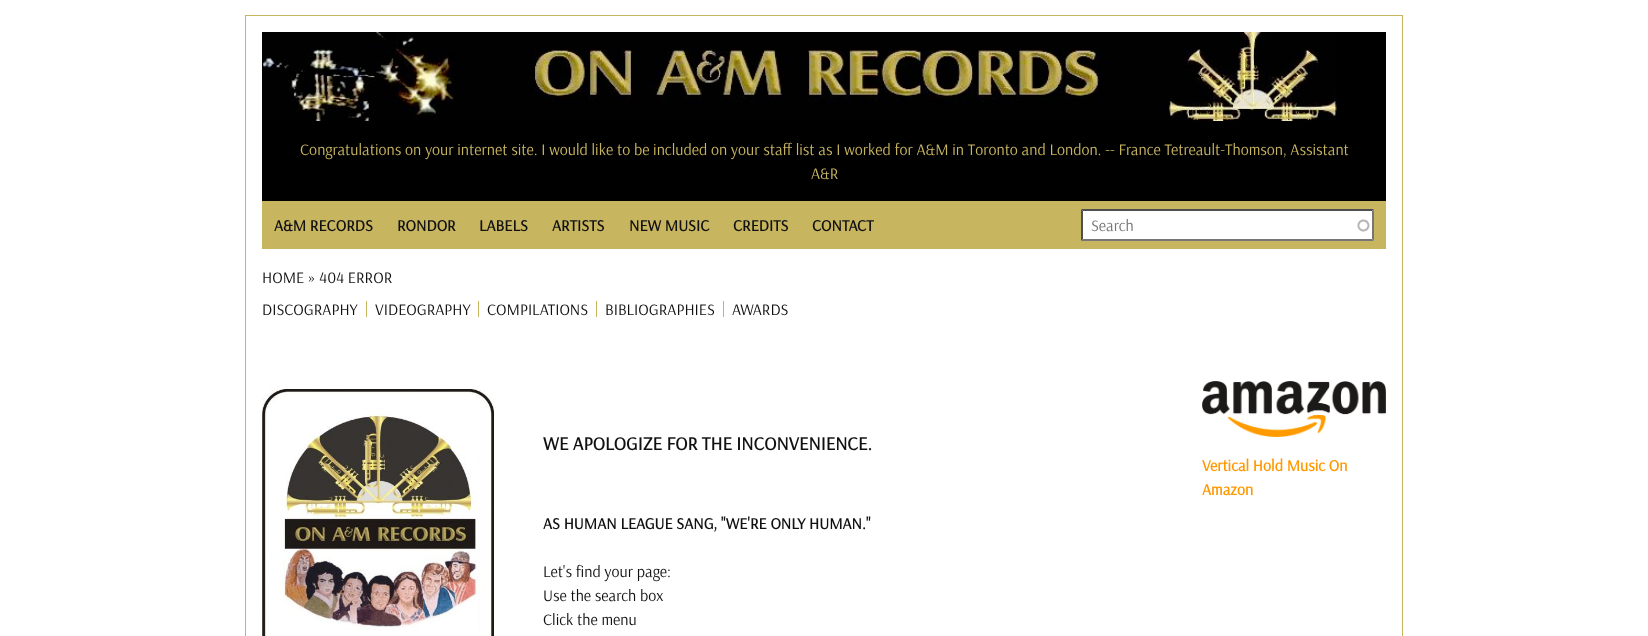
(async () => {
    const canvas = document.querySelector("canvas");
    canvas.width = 1648;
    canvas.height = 636;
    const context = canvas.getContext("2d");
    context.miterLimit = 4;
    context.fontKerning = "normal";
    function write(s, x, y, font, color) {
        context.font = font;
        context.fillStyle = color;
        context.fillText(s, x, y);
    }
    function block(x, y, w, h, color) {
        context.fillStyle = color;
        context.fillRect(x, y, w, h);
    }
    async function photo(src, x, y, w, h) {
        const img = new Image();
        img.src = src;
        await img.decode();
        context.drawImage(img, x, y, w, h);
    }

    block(0, 0, 1648, 636, "rgb(255, 255, 255)");
    context.strokeStyle = "rgb(200, 181, 96)";
    context.strokeRect(245.5, 15.5, 1157, 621);
    block(262, 32, 1124, 169, "rgb(0, 0, 0)");
    await photo("media/1.png", 262, 32, 1075, 89);
    write("Congratulations on your internet site. I would like to be included on your staff list as I worked for A&M in Toronto and London. -- France Tetreault-Thomson, Assistant", 300, 155, "16px Arsenal", "rgb(200, 181, 96)");
    write("A&R", 811, 179, "16px Arsenal", "rgb(200, 181, 96)");
    block(262, 201, 1124, 48, "rgb(200, 181, 96)");
    write("A&M RECORDS", 274, 231, "bold 16px Arsenal", "rgb(17, 17, 17)");
    write("RONDOR", 397, 231, "bold 16px Arsenal", "rgb(17, 17, 17)");
    write("LABELS", 479, 231, "bold 16px Arsenal", "rgb(17, 17, 17)");
    write("ARTISTS", 552, 231, "bold 16px Arsenal", "rgb(17, 17, 17)");
    write("NEW MUSIC", 629, 231, "bold 16px Arsenal", "rgb(17, 17, 17)");
    write("CREDITS", 733, 231, "bold 16px Arsenal", "rgb(17, 17, 17)");
    write("CONTACT", 812, 231, "bold 16px Arsenal", "rgb(17, 17, 17)");
    block(1081, 209, 293, 32, "rgb(255, 255, 255)");
    await photo("media/2.png", 1357, 219, 13, 13);
    context.fillStyle = "rgb(79, 79, 79)";
    context.beginPath();
    context.moveTo(1081, 209);
    context.lineTo(1374, 209);
    context.lineTo(1372, 211);
    context.lineTo(1083, 211);
    context.closePath();
    context.fill();
    context.fillStyle = "rgb(118, 118, 118)";
    context.beginPath();
    context.moveTo(1374, 209);
    context.lineTo(1374, 241);
    context.lineTo(1372, 239);
    context.lineTo(1372, 211);
    context.closePath();
    context.fill();
    context.beginPath();
    context.moveTo(1374, 241);
    context.lineTo(1081, 241);
    context.lineTo(1083, 239);
    context.lineTo(1372, 239);
    context.closePath();
    context.fill();
    context.fillStyle = "rgb(79, 79, 79)";
    context.beginPath();
    context.moveTo(1081, 241);
    context.lineTo(1081, 209);
    context.lineTo(1083, 211);
    context.lineTo(1083, 239);
    context.closePath();
    context.fill();
    write("Search", 1091, 231, "16px Arsenal", "rgb(117, 117, 117)");
    write("HOME » 404 ERROR", 262, 283, "16px Arsenal", "rgb(17, 17, 17)");
    block(366, 301, 1, 16, "rgb(200, 181, 96)");
    write("DISCOGRAPHY", 262, 315, "16px Arsenal", "rgb(17, 17, 17)");
    block(478, 301, 1, 16, "rgb(200, 181, 96)");
    write("VIDEOGRAPHY", 375, 315, "16px Arsenal", "rgb(17, 17, 17)");
    block(596, 301, 1, 16, "rgb(200, 181, 96)");
    write("COMPILATIONS", 487, 315, "16px Arsenal", "rgb(17, 17, 17)");
    block(723, 301, 1, 16, "rgb(200, 181, 96)");
    write("BIBLIOGRAPHIES", 605, 315, "16px Arsenal", "rgb(17, 17, 17)");
    write("AWARDS", 732, 315, "16px Arsenal", "rgb(17, 17, 17)");
    await photo("media/3.png", 262, 389, 232, 247);
    write("WE APOLOGIZE FOR THE INCONVENIENCE.", 543, 450, "bold 18.75px Arsenal", "rgb(17, 17, 17)");
    write("AS HUMAN LEAGUE SANG, \"WE'RE ONLY HUMAN.\"", 543, 529, "bold 16px Arsenal", "rgb(17, 17, 17)");
    write("Let's find your page:", 543, 577, "16px Arsenal", "rgb(17, 17, 17)");
    write("Use the search box", 543, 601, "16px Arsenal", "rgb(17, 17, 17)");
    write("Click the menu", 543, 625, "16px Arsenal", "rgb(17, 17, 17)");
    await photo("media/4.png", 1202, 381, 184, 56);
    write("Vertical Hold Music On", 1202, 471, "bold 16px Arsenal", "rgb(255, 153, 0)");
    write("Amazon", 1202, 495, "bold 16px Arsenal", "rgb(255, 153, 0)");
})();
